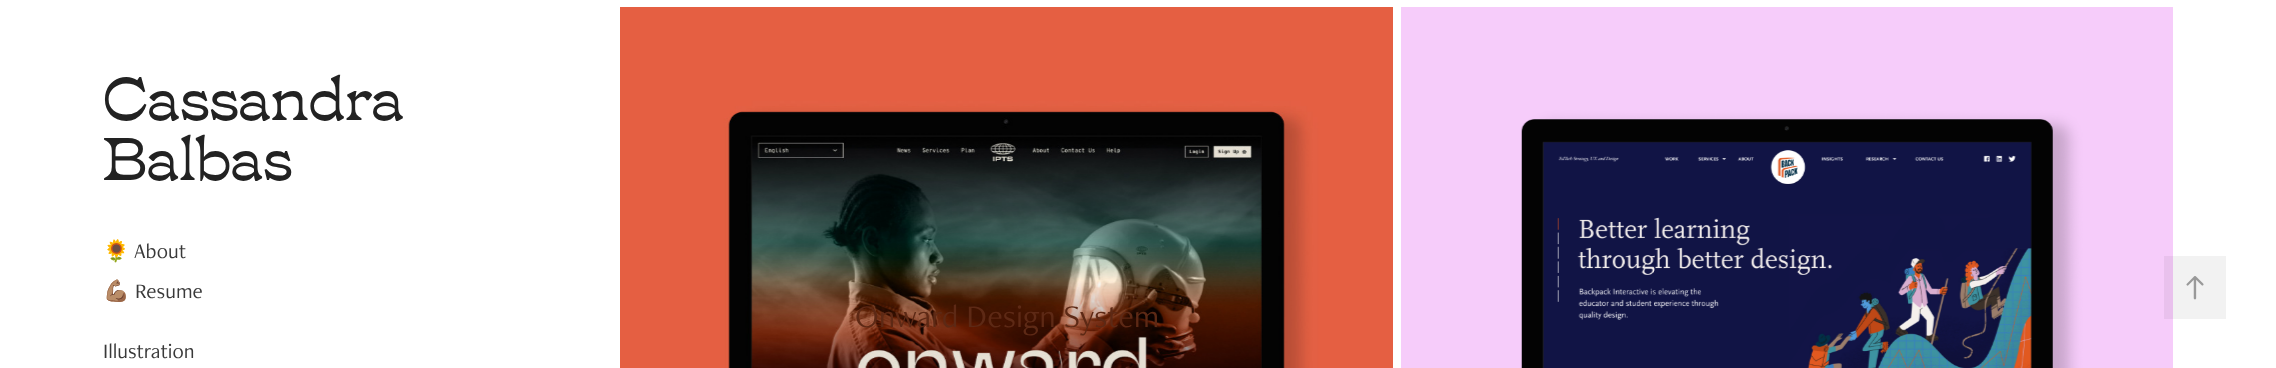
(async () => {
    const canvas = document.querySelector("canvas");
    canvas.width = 2276;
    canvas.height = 368;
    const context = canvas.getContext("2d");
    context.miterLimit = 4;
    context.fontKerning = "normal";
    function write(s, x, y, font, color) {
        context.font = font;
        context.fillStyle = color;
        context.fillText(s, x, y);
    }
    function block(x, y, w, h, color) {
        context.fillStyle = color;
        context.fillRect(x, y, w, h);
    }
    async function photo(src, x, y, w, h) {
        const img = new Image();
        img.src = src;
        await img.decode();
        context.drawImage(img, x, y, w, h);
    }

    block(0, 0, 2276, 368, "rgb(255, 255, 255)");
    write("Cassandra", 103, 120, "600 60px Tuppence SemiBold", "rgb(34, 34, 34)");
    write("Balbas", 103, 180, "600 60px Tuppence SemiBold", "rgb(34, 34, 34)");
    write("🌻", 103, 258, "21.25px Noto Color Emoji", "rgb(57, 57, 57)");
    write("About", 134, 258, "21.25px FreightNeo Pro", "rgb(57, 57, 57)");
    write("💪🏽", 103, 298, "21.25px Noto Color Emoji", "rgb(57, 57, 57)");
    write("Resume", 135, 298, "21.25px FreightNeo Pro", "rgb(57, 57, 57)");
    write("Illustration", 103, 358, "21.25px FreightNeo Pro", "rgb(57, 57, 57)");
    await photo("media/1.png", 620, 7, 773, 361);
    write("Onward Design System", 855, 327, "32.5px FreightNeo Pro", "rgb(93, 41, 21)");
    await photo("media/2.png", 1401, 7, 772, 361);
    block(2164, 256, 62, 63, "rgba(0, 0, 0, 0.05)");
    await photo("media/3.png", 2186, 276, 18, 24);
})();
